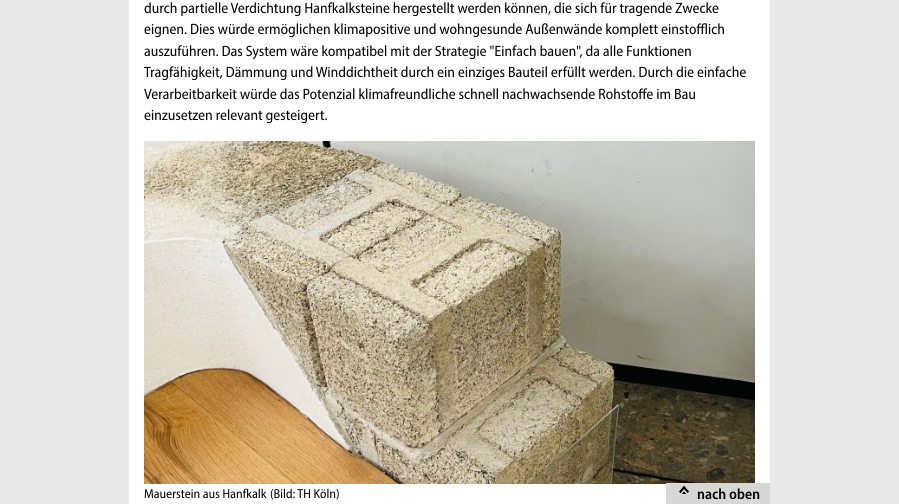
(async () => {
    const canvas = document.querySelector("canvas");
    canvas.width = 899;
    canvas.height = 504;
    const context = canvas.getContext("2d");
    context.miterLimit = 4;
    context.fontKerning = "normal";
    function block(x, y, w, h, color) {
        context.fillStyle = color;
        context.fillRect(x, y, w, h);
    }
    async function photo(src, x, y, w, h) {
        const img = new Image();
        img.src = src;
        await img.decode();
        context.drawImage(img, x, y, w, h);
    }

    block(0, 0, 899, 504, "rgb(232, 232, 232)");
    block(129, 0, 641, 504, "rgb(255, 255, 255)");
    await photo("media/1.png", 144, 2, 575, 15);
    await photo("media/2.png", 144, 23, 580, 15);
    await photo("media/3.png", 144, 45, 547, 15);
    await photo("media/4.png", 144, 66, 602, 15);
    await photo("media/5.png", 144, 88, 551, 12);
    await photo("media/6.png", 144, 109, 183, 15);
    await photo("media/7.png", 144, 141, 611, 343);
    await photo("media/8.png", 144, 488, 123, 11);
    await photo("media/9.png", 270, 488, 69, 12);
    block(666, 483, 104, 21, "rgb(215, 215, 215)");
    await photo("media/10.png", 679, 486, 10, 8);
    await photo("media/11.png", 697, 488, 63, 12);
})();
